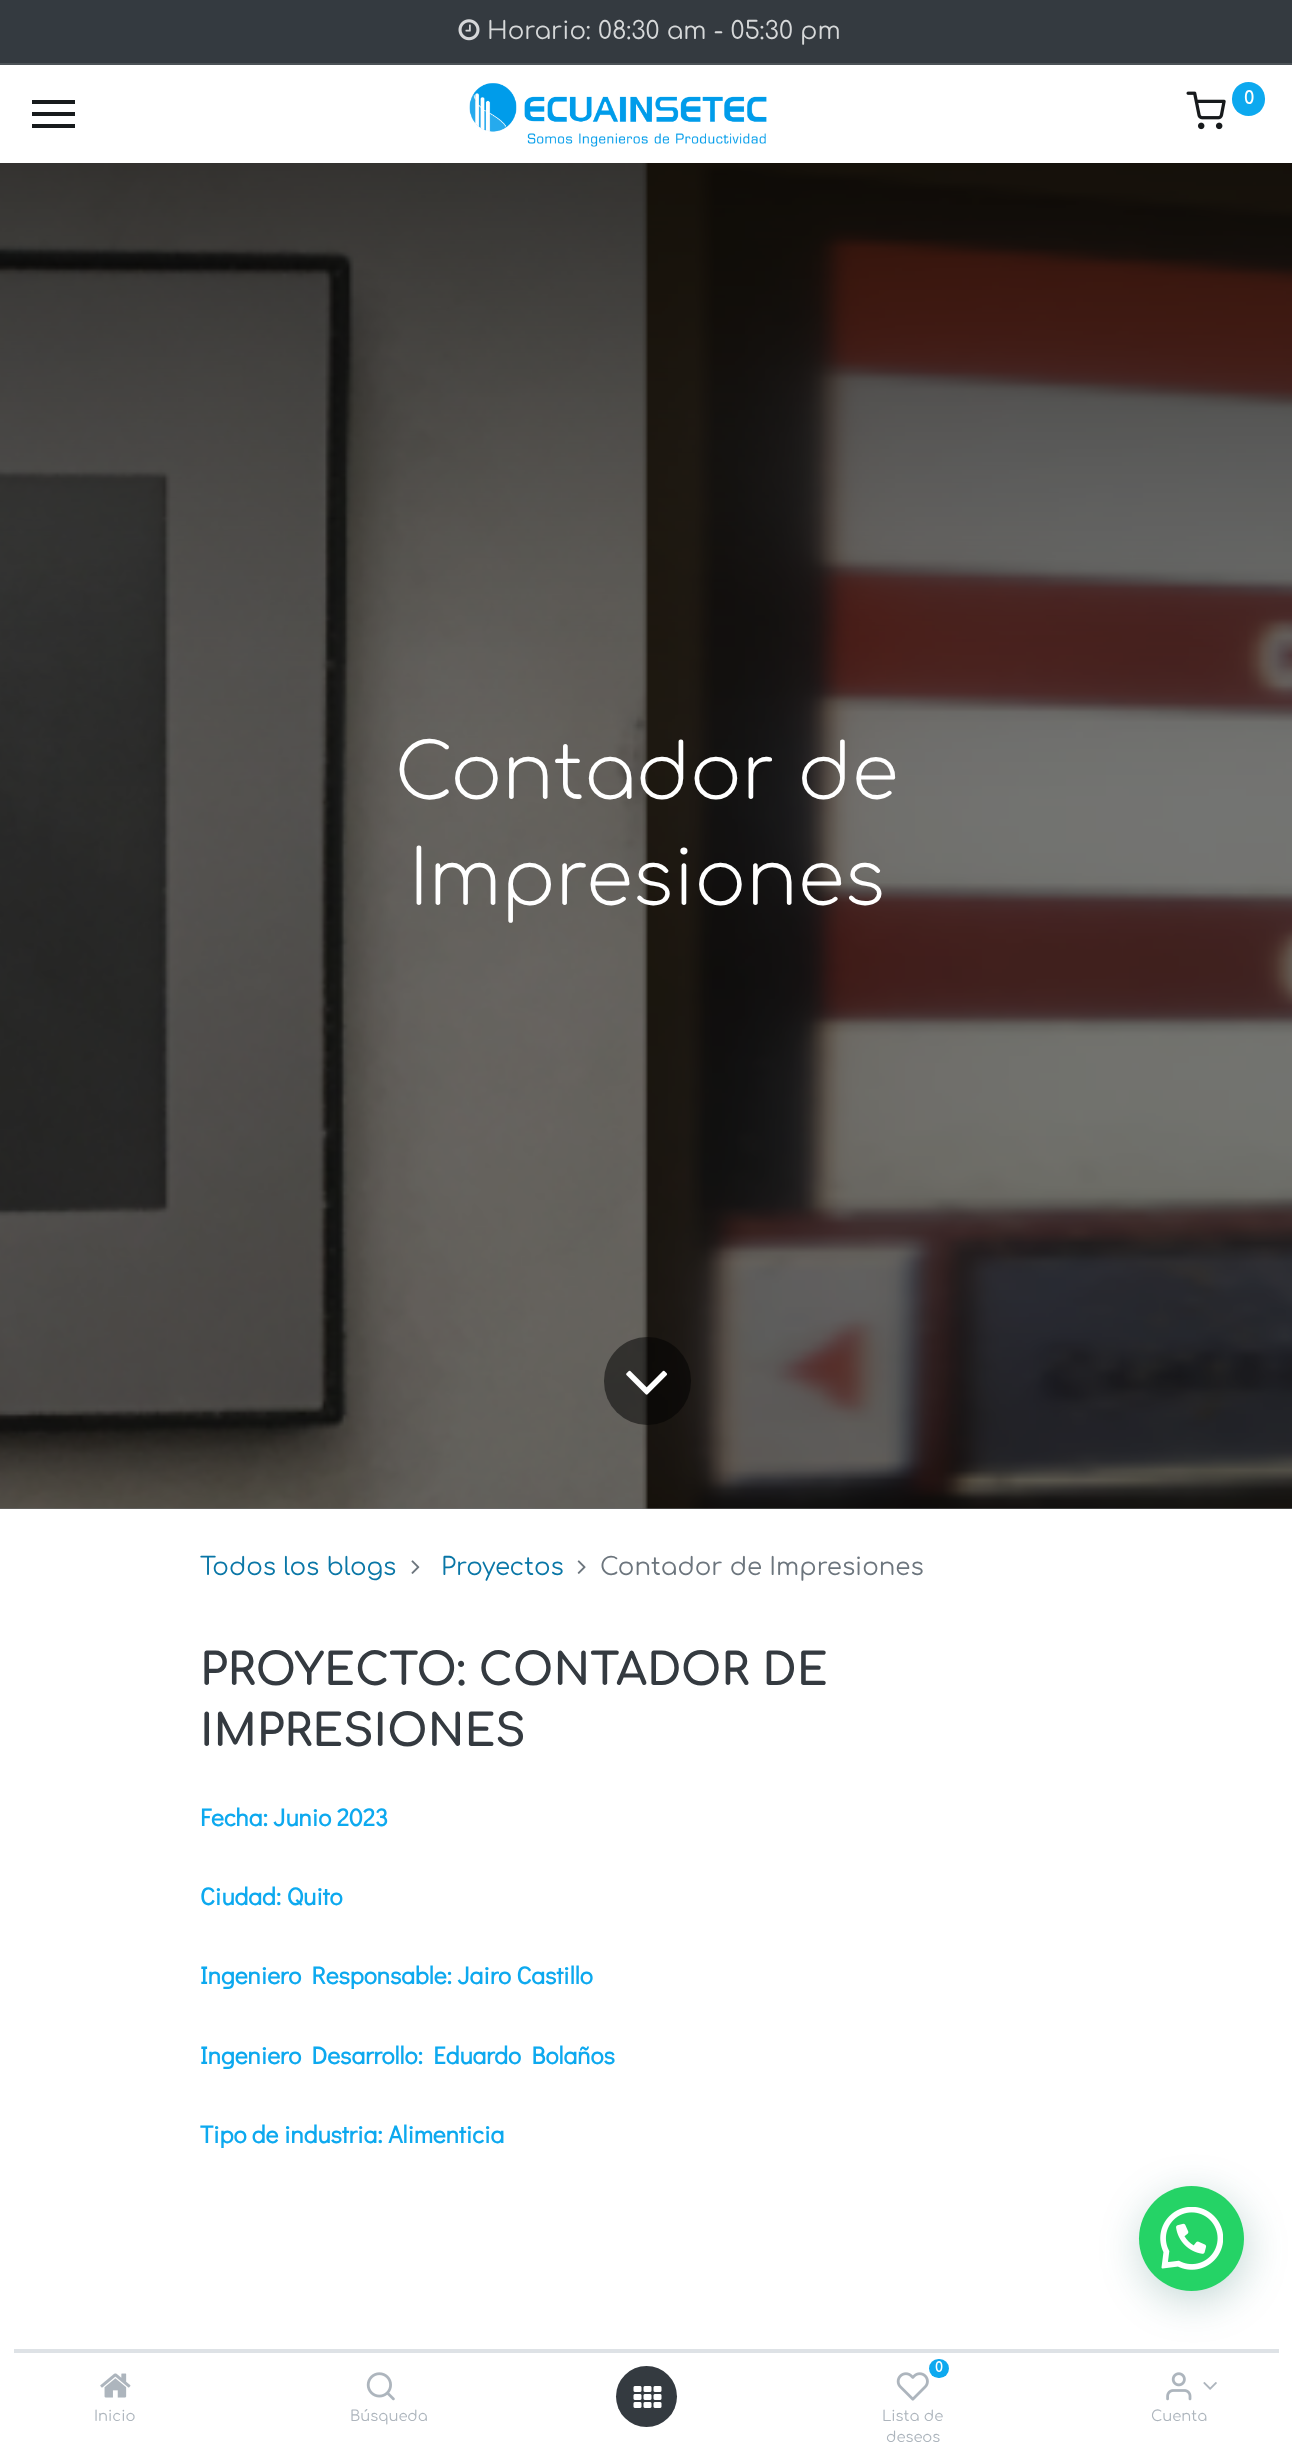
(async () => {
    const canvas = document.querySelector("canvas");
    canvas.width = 1292;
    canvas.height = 2448;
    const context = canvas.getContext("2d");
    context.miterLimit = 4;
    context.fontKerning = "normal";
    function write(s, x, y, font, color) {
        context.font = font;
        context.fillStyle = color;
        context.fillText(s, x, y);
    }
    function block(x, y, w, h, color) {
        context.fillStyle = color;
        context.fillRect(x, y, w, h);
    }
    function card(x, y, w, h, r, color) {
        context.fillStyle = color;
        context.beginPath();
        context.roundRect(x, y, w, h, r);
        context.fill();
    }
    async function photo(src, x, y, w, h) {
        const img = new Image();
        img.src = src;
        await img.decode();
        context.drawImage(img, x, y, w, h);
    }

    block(0, 0, 1292, 2448, "rgb(255, 255, 255)");
    block(0, 0, 1292, 63, "rgb(52, 58, 64)");
    block(0, 63, 1292, 2, "rgb(76, 82, 87)");
    await photo("media/1.png", 458, 19, 22, 22);
    write("Horario: 08:30 am - 05:30 pm", 487, 39, "24.5px Comfortaa", "rgb(214, 216, 217)");
    await photo("media/2.png", 469, 83, 298, 64);
    await photo("media/3.png", 1186, 91, 40, 39);
    card(1232, 82, 33, 34, 16.5, "rgb(13, 169, 239)");
    write("0", 1244, 104, "bold 18px Comfortaa", "rgb(255, 255, 255)");
    block(32, 100, 43, 4, "rgb(23, 26, 28)");
    block(32, 112, 43, 4, "rgb(23, 26, 28)");
    block(32, 124, 43, 4, "rgb(23, 26, 28)");
    block(0, 1508, 1292, 1, "rgb(111, 112, 114)");
    await photo("media/4.png", 0, 163, 1292, 1346);
    write("Contador de", 395, 799, "300 76.25px Comfortaa", "rgb(255, 255, 255)");
    write("Impresiones", 409, 905, "300 76.25px Comfortaa", "rgb(255, 255, 255)");
    card(604, 1337, 87, 88, 43.5, "rgba(0, 0, 0, 0.5)");
    await photo("media/5.png", 626, 1370, 42, 25);
    write("Todos los blogs", 200, 1575, "24.5px Comfortaa", "rgb(9, 118, 166)");
    await photo("media/6.png", 411, 1560, 9, 14);
    write("Proyectos", 441, 1575, "24.5px Comfortaa", "rgb(9, 118, 166)");
    await photo("media/7.png", 577, 1560, 9, 14);
    write("Contador de Impresiones", 600, 1575, "24.5px Comfortaa", "rgb(108, 117, 125)");
    write("PROYECTO: CONTADOR DE", 200, 1685, "bold 44.2px Comfortaa", "rgb(52, 58, 64)");
    write("IMPRESIONES", 200, 1746, "bold 44.2px Comfortaa", "rgb(52, 58, 64)");
    write("Fecha: Junio 2023", 200, 1826, "bold 24.5px Didact Gothic", "rgb(13, 169, 239)");
    write("Ciudad: Quito", 200, 1905, "bold 24.5px Didact Gothic", "rgb(13, 169, 239)");
    write("Ingeniero Responsable: Jairo Castillo", 200, 1984, "bold 24.5px Didact Gothic", "rgb(13, 169, 239)");
    write("Ingeniero Desarrollo: Eduardo Bolaños", 200, 2064, "bold 24.5px Didact Gothic", "rgb(13, 169, 239)");
    write("Tipo de industria: Alimenticia", 200, 2143, "bold 24.5px Didact Gothic", "rgb(13, 169, 239)");
    context.fillStyle = "rgba(7, 94, 84, 0.24)";
    context.filter = "blur(21px)";
    context.beginPath();
    context.roundRect(1141, 2196, 105, 105, 52.5);
    context.fill();
    context.filter = "none";
    context.fillStyle = "rgb(37, 211, 102)";
    context.beginPath();
    context.arc(1191.5, 2238.5, 52.5, 0, Math.PI * 2);
    context.fill();
    await photo("media/8.png", 1160, 2207, 63, 63);
    block(14, 2349, 1265, 4, "rgb(222, 226, 230)");
    await photo("media/9.png", 100, 2373, 31, 25);
    write("Inicio", 94, 2421, "14.75px Comfortaa", "rgb(173, 181, 189)");
    await photo("media/10.png", 366, 2372, 29, 29);
    write("Búsqueda", 350, 2421, "14.75px Comfortaa", "rgb(173, 181, 189)");
    context.fillStyle = "rgb(52, 58, 64)";
    context.beginPath();
    context.arc(646.5, 2396.5, 30.5, 0, Math.PI * 2);
    context.fill();
    await photo("media/11.png", 633, 2386, 29, 22);
    card(929, 2359, 20, 19, 9.5, "rgb(13, 169, 239)");
    write("0", 935, 2372, "bold 14px Comfortaa", "rgb(255, 255, 255)");
    await photo("media/12.png", 896, 2372, 33, 29);
    write("Lista de", 882, 2421, "14.75px Comfortaa", "rgb(173, 181, 189)");
    write("deseos", 886, 2442, "14.75px Comfortaa", "rgb(173, 181, 189)");
    await photo("media/13.png", 1166, 2372, 26, 29);
    await photo("media/14.png", 1203, 2382, 14, 8);
    write("Cuenta", 1151, 2421, "14.75px Comfortaa", "rgb(173, 181, 189)");
})();
